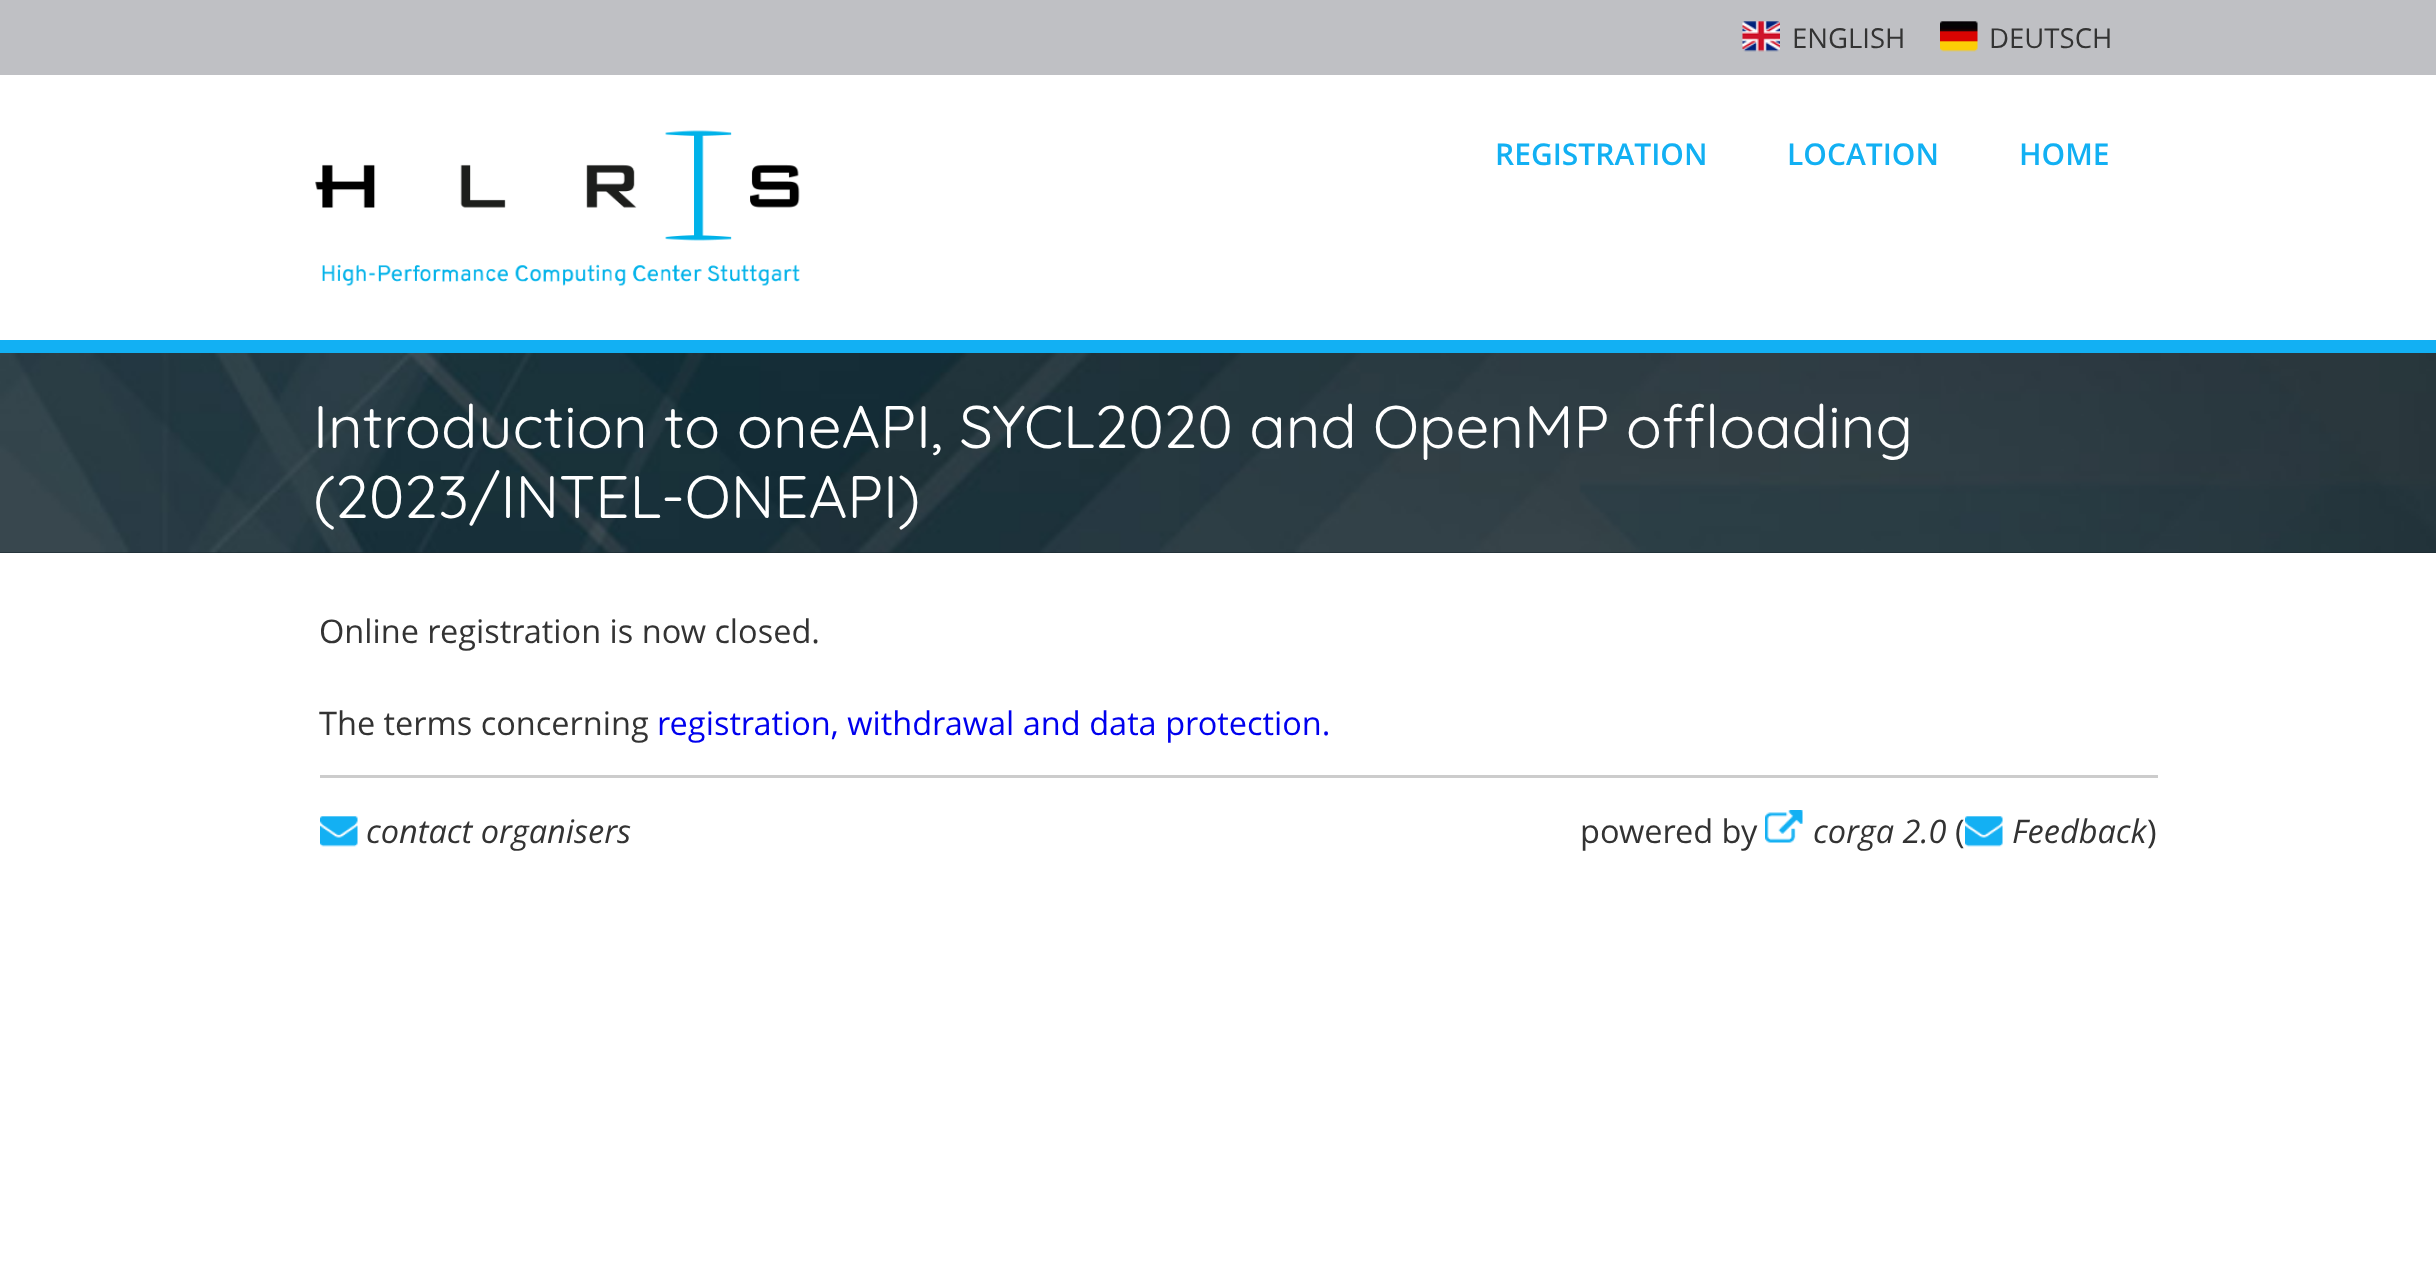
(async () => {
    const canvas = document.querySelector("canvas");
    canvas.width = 2436;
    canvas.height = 1286;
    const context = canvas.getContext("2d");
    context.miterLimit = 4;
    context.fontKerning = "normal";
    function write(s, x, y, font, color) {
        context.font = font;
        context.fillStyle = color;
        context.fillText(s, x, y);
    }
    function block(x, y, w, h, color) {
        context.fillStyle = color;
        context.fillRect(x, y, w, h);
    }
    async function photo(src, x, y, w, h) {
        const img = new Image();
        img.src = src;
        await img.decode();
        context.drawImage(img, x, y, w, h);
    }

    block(0, 0, 2436, 1286, "rgb(255, 255, 255)");
    block(0, 0, 2436, 75, "rgb(191, 192, 196)");
    await photo("media/1.png", 1742, 21, 38, 31);
    write("ENGLISH", 1792, 48, "27.5px Open Sans", "rgb(51, 51, 51)");
    await photo("media/2.png", 1940, 21, 38, 31);
    write("DEUTSCH", 1989, 48, "27.5px Open Sans", "rgb(51, 51, 51)");
    await photo("media/3.png", 315, 130, 485, 156);
    write("REGISTRATION", 1495, 165, "600 30px Open Sans", "rgb(18, 176, 243)");
    write("LOCATION", 1787, 165, "600 30px Open Sans", "rgb(18, 176, 243)");
    write("HOME", 2019, 165, "600 30px Open Sans", "rgb(18, 176, 243)");
    block(0, 552, 2436, 1, "rgb(24, 39, 45)");
    await photo("media/4.png", 0, 353, 2436, 200);
    block(0, 340, 2436, 13, "rgb(18, 176, 243)");
    write("Introduction to oneAPI, SYCL2020 and OpenMP offloading", 313, 448, "60px Quicksand", "rgb(255, 255, 255)");
    write("(2023/INTEL-ONEAPI)", 313, 518, "60px Quicksand", "rgb(255, 255, 255)");
    write("Online registration is now closed.", 319, 643, "32.5px Open Sans", "rgb(51, 51, 51)");
    write("The terms concerning", 319, 735, "32.5px Open Sans", "rgb(51, 51, 51)");
    write("registration, withdrawal and data protection.", 657, 735, "32.5px Open Sans", "rgb(0, 0, 238)");
    block(320, 775, 1838, 3, "rgb(204, 204, 204)");
    await photo("media/5.png", 320, 816, 38, 31);
    write("contact organisers", 366, 843, "italic 32.5px Open Sans", "rgb(51, 51, 51)");
    write("powered by", 1580, 843, "32.5px Open Sans", "rgb(51, 51, 51)");
    await photo("media/6.png", 1765, 810, 38, 33);
    write("corga 2.0", 1813, 843, "italic 32.5px Open Sans", "rgb(51, 51, 51)");
    write("(", 1955, 843, "32.5px Open Sans", "rgb(51, 51, 51)");
    await photo("media/7.png", 1965, 816, 38, 31);
    write("Feedback", 2012, 843, "italic 32.5px Open Sans", "rgb(51, 51, 51)");
    write(")", 2147, 843, "32.5px Open Sans", "rgb(51, 51, 51)");
})();
